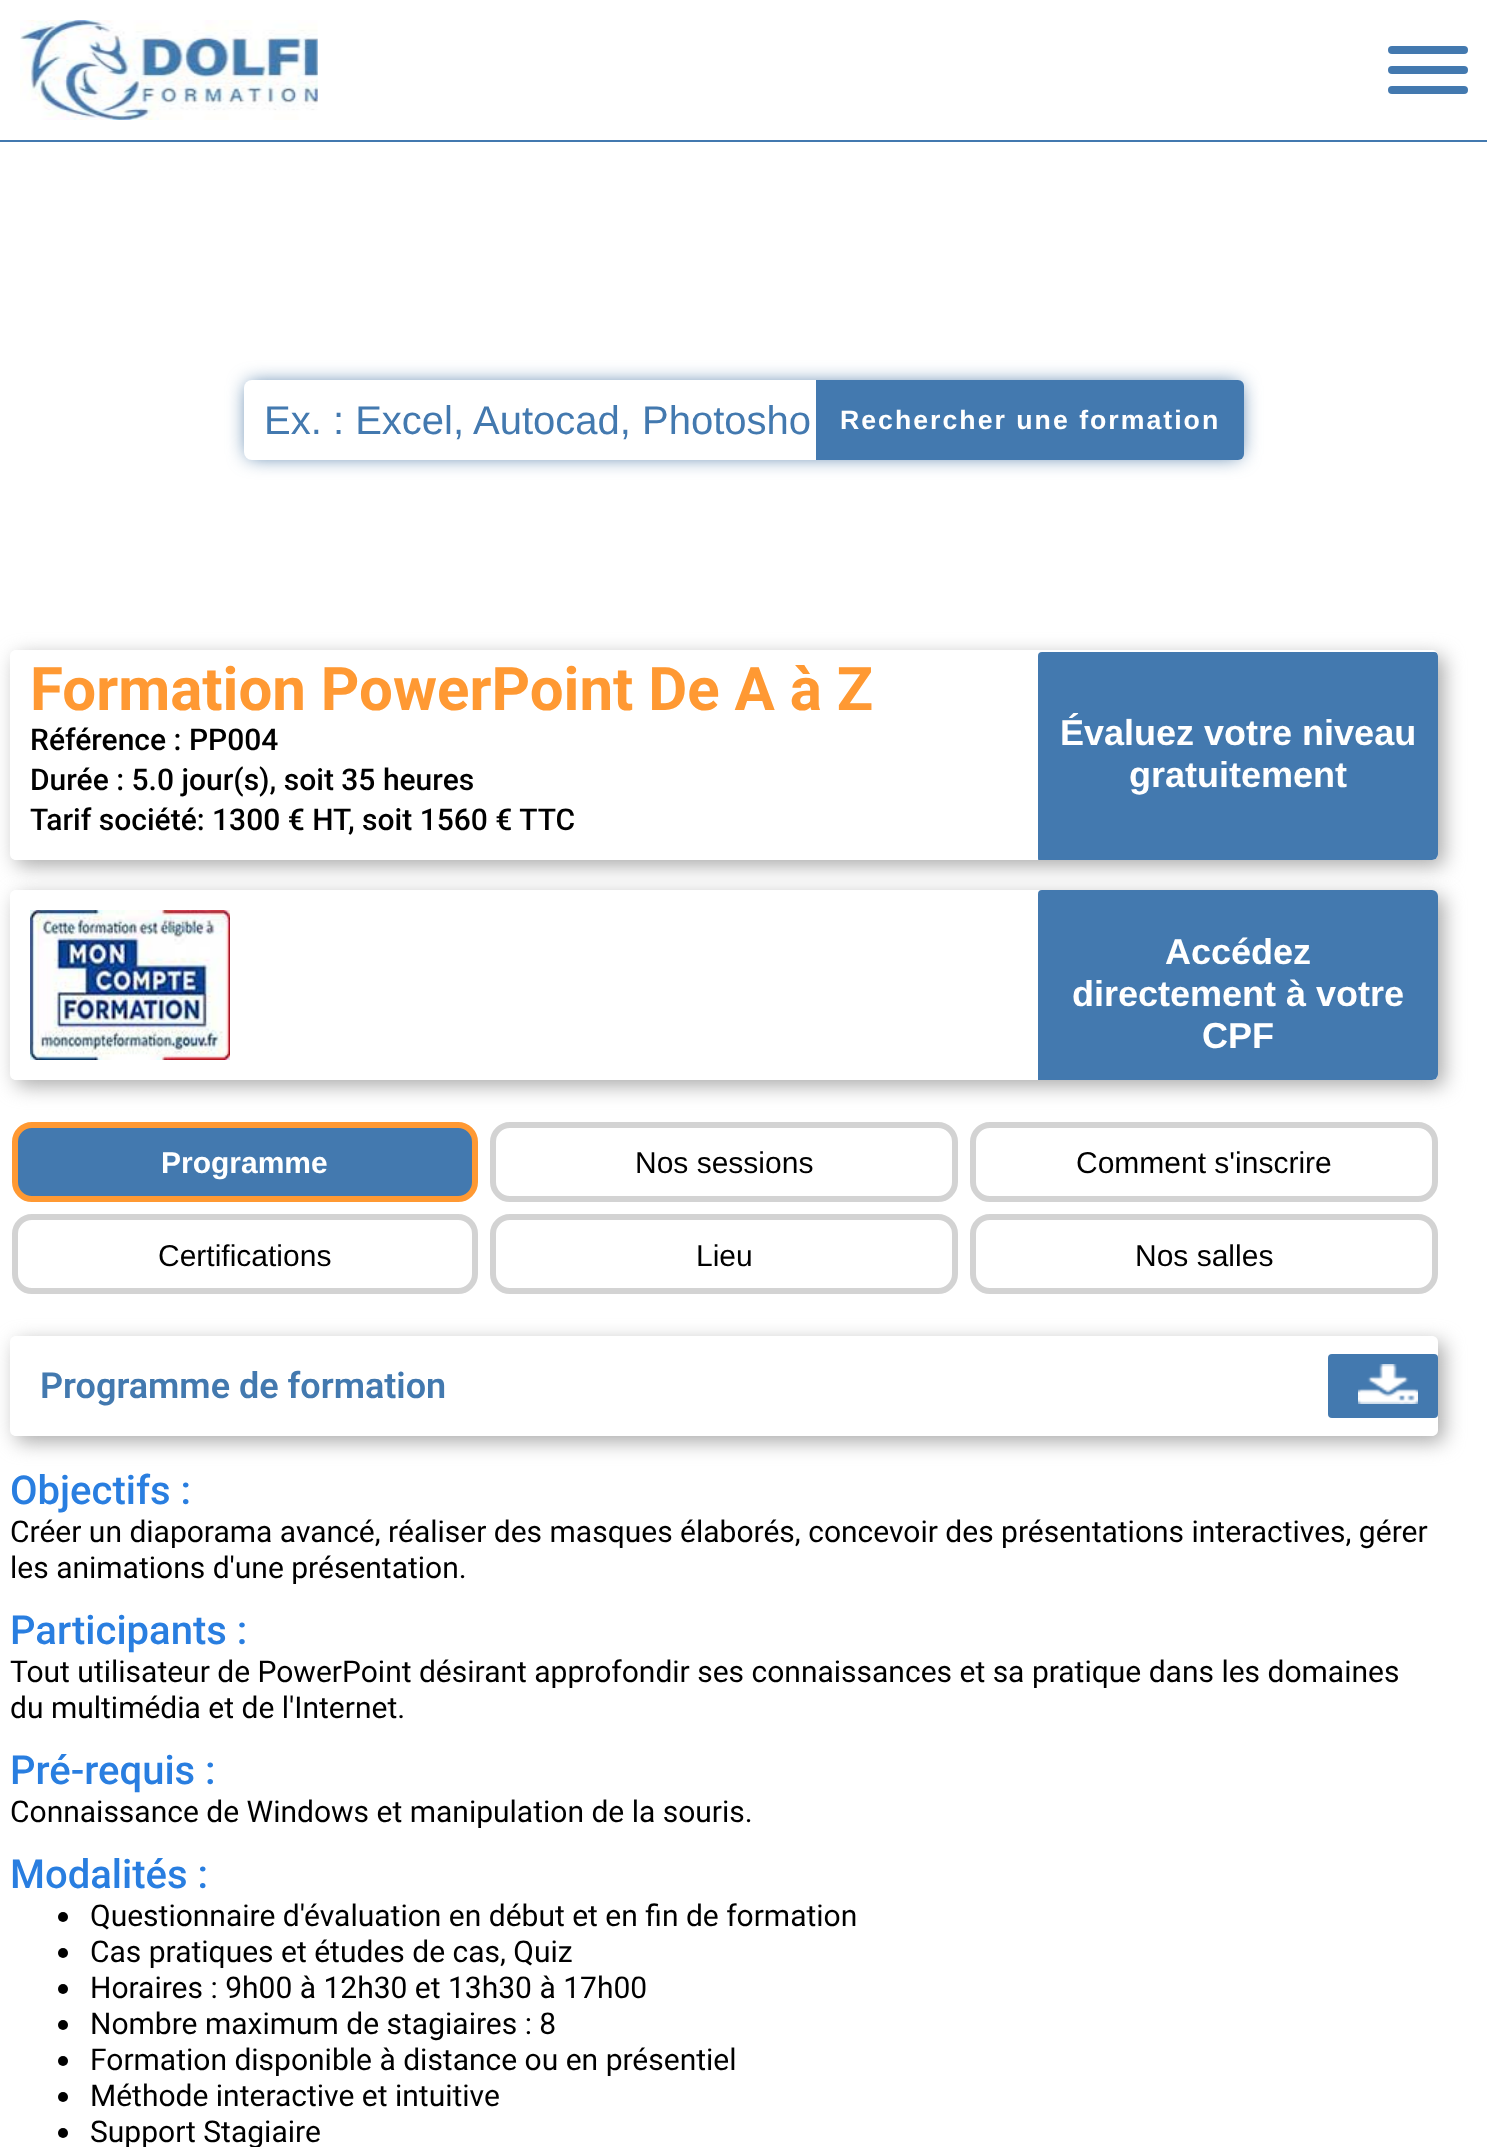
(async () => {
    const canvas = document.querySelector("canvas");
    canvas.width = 1487;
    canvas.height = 2147;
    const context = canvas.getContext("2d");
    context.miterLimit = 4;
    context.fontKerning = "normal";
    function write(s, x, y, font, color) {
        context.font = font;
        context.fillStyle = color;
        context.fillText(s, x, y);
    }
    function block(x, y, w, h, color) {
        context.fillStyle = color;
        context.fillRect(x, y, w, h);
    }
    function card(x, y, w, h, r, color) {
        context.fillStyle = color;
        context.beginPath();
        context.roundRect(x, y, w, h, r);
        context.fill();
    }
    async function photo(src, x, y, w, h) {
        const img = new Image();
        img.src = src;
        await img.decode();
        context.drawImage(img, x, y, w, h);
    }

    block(0, 0, 1487, 2147, "rgb(255, 255, 255)");
    block(0, 140, 1487, 2, "rgb(67, 121, 175)");
    await photo("media/1.png", 20, 20, 298, 100);
    card(1388, 46, 80, 8, 4, "rgb(67, 121, 175)");
    card(1388, 66, 80, 8, 4, "rgb(67, 121, 175)");
    card(1388, 86, 80, 8, 4, "rgb(67, 121, 175)");
    context.fillStyle = "rgb(57, 107, 156)";
    context.filter = "blur(10px)";
    context.beginPath();
    context.roundRect(248, 384, 992, 72, 4);
    context.fill();
    context.filter = "none";
    card(244, 380, 1000, 80, 8, "rgb(255, 255, 255)");
    write("Ex. : Excel, Autocad, Photosho", 264, 434, "40px Liberation Sans", "rgb(67, 121, 175)");
    context.beginPath();
    context.roundRect(816, 380, 428, 80, [0, 6, 6, 0]);
    context.fill();
    context.letterSpacing = "2px";
    write("Rechercher une formation", 840, 429, "bold 26.7px Liberation Sans", "rgb(255, 255, 255)");
    context.save();
    context.beginPath();
    context.moveTo(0, 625);
    context.lineTo(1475, 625);
    context.lineTo(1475, 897);
    context.lineTo(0, 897);
    context.closePath();
    context.moveTo(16, 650);
    context.lineTo(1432, 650);
    context.bezierCurveTo(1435.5, 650, 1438, 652.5, 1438, 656);
    context.lineTo(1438, 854);
    context.bezierCurveTo(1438, 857.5, 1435.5, 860, 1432, 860);
    context.lineTo(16, 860);
    context.bezierCurveTo(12.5, 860, 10, 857.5, 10, 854);
    context.lineTo(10, 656);
    context.bezierCurveTo(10, 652.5, 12.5, 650, 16, 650);
    context.closePath();
    context.clip("evenodd");
    context.fillStyle = "rgb(171, 171, 171)";
    context.filter = "blur(10px)";
    context.beginPath();
    context.roundRect(16, 656, 1428, 210, 6);
    context.fill();
    context.filter = "none";
    context.restore();
    context.letterSpacing = "0px";
    write("Formation PowerPoint De A à Z", 30, 710, "bold 60px Roboto", "rgb(255, 153, 51)");
    write("Référence : PP004", 30, 750, "500 30px Roboto", "rgb(0, 0, 0)");
    context.save();
    context.beginPath();
    context.roundRect(10, 650, 1428, 210, 6);
    context.clip();
    card(1038, 652, 400, 210, 4, "rgb(67, 121, 175)");
    context.restore();
    write("Évaluez votre niveau", 1060, 745, "bold 36px Liberation Sans", "rgb(255, 255, 255)");
    write("gratuitement", 1129, 787, "bold 36px Liberation Sans", "rgb(255, 255, 255)");
    write("Durée : 5.0 jour(s), soit 35 heures", 30, 790, "500 30px Roboto", "rgb(0, 0, 0)");
    write("Tarif société: 1300 € HT, soit 1560 € TTC", 30, 830, "500 30px Roboto", "rgb(0, 0, 0)");
    context.save();
    context.beginPath();
    context.moveTo(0, 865);
    context.lineTo(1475, 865);
    context.lineTo(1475, 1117);
    context.lineTo(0, 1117);
    context.closePath();
    context.moveTo(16, 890);
    context.lineTo(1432, 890);
    context.bezierCurveTo(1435.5, 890, 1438, 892.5, 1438, 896);
    context.lineTo(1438, 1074);
    context.bezierCurveTo(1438, 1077.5, 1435.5, 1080, 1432, 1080);
    context.lineTo(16, 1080);
    context.bezierCurveTo(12.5, 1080, 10, 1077.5, 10, 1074);
    context.lineTo(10, 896);
    context.bezierCurveTo(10, 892.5, 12.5, 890, 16, 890);
    context.closePath();
    context.clip("evenodd");
    context.fillStyle = "rgb(171, 171, 171)";
    context.filter = "blur(10px)";
    context.beginPath();
    context.roundRect(16, 896, 1428, 190, 6);
    context.fill();
    context.filter = "none";
    context.restore();
    await photo("media/2.png", 30, 910, 200, 150);
    context.fillStyle = "rgb(67, 121, 175)";
    context.beginPath();
    context.roundRect(1038, 890, 400, 190, [4, 6, 6, 0]);
    context.fill();
    write("Accédez", 1165, 964, "bold 36px Liberation Sans", "rgb(255, 255, 255)");
    write("directement à votre", 1072, 1006, "bold 36px Liberation Sans", "rgb(255, 255, 255)");
    write("CPF", 1202, 1048, "bold 36px Liberation Sans", "rgb(255, 255, 255)");
    context.fillStyle = "rgb(67, 121, 175)";
    context.beginPath();
    context.roundRect(15, 1125, 460, 74, 17);
    context.fill();
    context.strokeStyle = "rgb(255, 153, 51)";
    context.lineWidth = 6;
    context.stroke();
    write("Programme", 161, 1173, "bold 30px Liberation Sans", "rgb(255, 255, 255)");
    context.beginPath();
    context.roundRect(493, 1125, 462, 74, 17);
    context.strokeStyle = "rgb(211, 211, 211)";
    context.stroke();
    write("Nos sessions", 635, 1173, "30px Liberation Sans", "rgb(0, 0, 0)");
    context.beginPath();
    context.roundRect(973, 1125, 462, 74, 17);
    context.stroke();
    write("Comment s'inscrire", 1076, 1173, "30px Liberation Sans", "rgb(0, 0, 0)");
    context.beginPath();
    context.roundRect(15, 1217, 460, 74, 17);
    context.stroke();
    write("Certifications", 158, 1266, "30px Liberation Sans", "rgb(0, 0, 0)");
    context.beginPath();
    context.roundRect(493, 1217, 462, 74, 17);
    context.stroke();
    write("Lieu", 696, 1266, "30px Liberation Sans", "rgb(0, 0, 0)");
    context.beginPath();
    context.roundRect(973, 1217, 462, 74, 17);
    context.stroke();
    write("Nos salles", 1135, 1266, "30px Liberation Sans", "rgb(0, 0, 0)");
    context.save();
    context.beginPath();
    context.moveTo(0, 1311);
    context.lineTo(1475, 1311);
    context.lineTo(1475, 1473);
    context.lineTo(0, 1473);
    context.closePath();
    context.moveTo(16, 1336);
    context.lineTo(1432, 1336);
    context.bezierCurveTo(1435.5, 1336, 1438, 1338.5, 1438, 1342);
    context.lineTo(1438, 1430);
    context.bezierCurveTo(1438, 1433.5, 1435.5, 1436, 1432, 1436);
    context.lineTo(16, 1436);
    context.bezierCurveTo(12.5, 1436, 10, 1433.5, 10, 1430);
    context.lineTo(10, 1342);
    context.bezierCurveTo(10, 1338.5, 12.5, 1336, 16, 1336);
    context.closePath();
    context.clip("evenodd");
    context.fillStyle = "rgb(171, 171, 171)";
    context.filter = "blur(10px)";
    context.beginPath();
    context.roundRect(16, 1342, 1428, 100, 6);
    context.fill();
    context.filter = "none";
    context.restore();
    write("Programme de formation", 40, 1398, "600 36px Roboto", "rgb(67, 121, 175)");
    card(1328, 1354, 110, 64, 4, "rgb(67, 121, 175)");
    await photo("media/3.png", 1358, 1364, 60, 40);
    write("Objectifs :", 10, 1504, "500 40px Roboto", "rgb(41, 126, 224)");
    write("Créer un diaporama avancé, réaliser des masques élaborés, concevoir des présentations interactives, gérer", 10, 1542, "30px Roboto", "rgb(0, 0, 0)");
    write("les animations d'une présentation.", 10, 1578, "30px Roboto", "rgb(0, 0, 0)");
    write("Participants :", 10, 1644, "500 40px Roboto", "rgb(41, 126, 224)");
    write("Tout utilisateur de PowerPoint désirant approfondir ses connaissances et sa pratique dans les domaines", 10, 1682, "30px Roboto", "rgb(0, 0, 0)");
    write("du multimédia et de l'Internet.", 10, 1718, "30px Roboto", "rgb(0, 0, 0)");
    write("Pré-requis :", 10, 1784, "500 40px Roboto", "rgb(41, 126, 224)");
    write("Connaissance de Windows et manipulation de la souris.", 10, 1822, "30px Roboto", "rgb(0, 0, 0)");
    write("Modalités :", 10, 1888, "500 40px Roboto", "rgb(41, 126, 224)");
    context.fillStyle = "rgb(0, 0, 0)";
    context.beginPath();
    context.arc(63, 1917, 5, 0, Math.PI * 2);
    context.fill();
    write("Questionnaire d'évaluation en début et en fin de formation", 90, 1926, "30px Roboto", "rgb(0, 0, 0)");
    context.beginPath();
    context.arc(63, 1953, 5, 0, Math.PI * 2);
    context.fill();
    write("Cas pratiques et études de cas, Quiz", 90, 1962, "30px Roboto", "rgb(0, 0, 0)");
    context.beginPath();
    context.arc(63, 1989, 5, 0, Math.PI * 2);
    context.fill();
    write("Horaires : 9h00 à 12h30 et 13h30 à 17h00", 90, 1998, "30px Roboto", "rgb(0, 0, 0)");
    context.beginPath();
    context.arc(63, 2025, 5, 0, Math.PI * 2);
    context.fill();
    write("Nombre maximum de stagiaires : 8", 90, 2034, "30px Roboto", "rgb(0, 0, 0)");
    context.beginPath();
    context.arc(63, 2061, 5, 0, Math.PI * 2);
    context.fill();
    write("Formation disponible à distance ou en présentiel", 90, 2070, "30px Roboto", "rgb(0, 0, 0)");
    context.beginPath();
    context.arc(63, 2097, 5, 0, Math.PI * 2);
    context.fill();
    write("Méthode interactive et intuitive", 90, 2106, "30px Roboto", "rgb(0, 0, 0)");
    context.beginPath();
    context.arc(63, 2133, 5, 0, Math.PI * 2);
    context.fill();
    write("Support Stagiaire", 90, 2142, "30px Roboto", "rgb(0, 0, 0)");
})();
